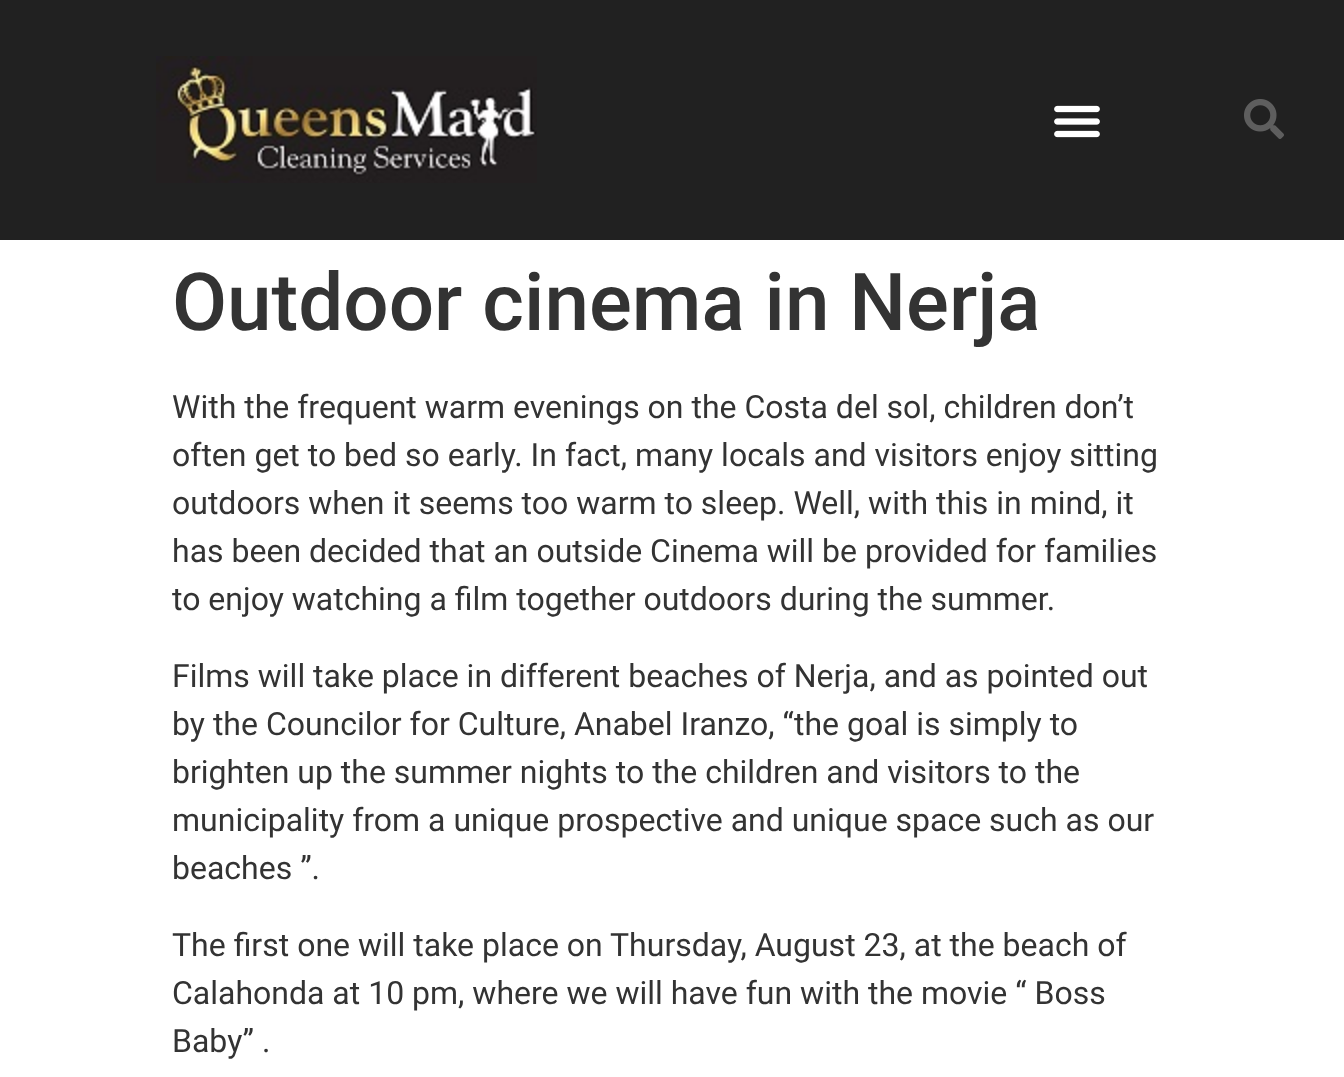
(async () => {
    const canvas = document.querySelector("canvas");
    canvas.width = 1344;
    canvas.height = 1077;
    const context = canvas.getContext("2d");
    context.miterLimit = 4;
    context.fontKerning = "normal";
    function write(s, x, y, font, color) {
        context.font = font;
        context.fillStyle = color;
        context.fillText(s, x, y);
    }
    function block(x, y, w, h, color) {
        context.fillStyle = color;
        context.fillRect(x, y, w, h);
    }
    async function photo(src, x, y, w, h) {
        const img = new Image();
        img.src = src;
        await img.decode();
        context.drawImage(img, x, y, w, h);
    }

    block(0, 0, 1344, 1077, "rgb(255, 255, 255)");
    block(0, 0, 1344, 240, "rgb(33, 33, 33)");
    await photo("media/1.png", 156, 56, 381, 127);
    await photo("media/2.png", 1054, 105, 46, 33);
    await photo("media/3.png", 1244, 99, 40, 40);
    write("Outdoor cinema in Nerja", 172, 330, "500 80px Roboto", "rgb(51, 51, 51)");
    write("With the frequent warm evenings on the Costa del sol, children don’t", 172, 418, "32px Roboto", "rgb(51, 51, 51)");
    write("often get to bed so early. In fact, many locals and visitors enjoy sitting", 172, 466, "32px Roboto", "rgb(51, 51, 51)");
    write("outdoors when it seems too warm to sleep. Well, with this in mind, it", 172, 514, "32px Roboto", "rgb(51, 51, 51)");
    write("has been decided that an outside Cinema will be provided for families", 172, 562, "32px Roboto", "rgb(51, 51, 51)");
    write("to enjoy watching a film together outdoors during the summer.", 172, 610, "32px Roboto", "rgb(51, 51, 51)");
    write("Films will take place in different beaches of Nerja, and as pointed out", 172, 687, "32px Roboto", "rgb(51, 51, 51)");
    write("by the Councilor for Culture, Anabel Iranzo, “the goal is simply to", 172, 735, "32px Roboto", "rgb(51, 51, 51)");
    write("brighten up the summer nights to the children and visitors to the", 172, 783, "32px Roboto", "rgb(51, 51, 51)");
    write("municipality from a unique prospective and unique space such as our", 172, 831, "32px Roboto", "rgb(51, 51, 51)");
    write("beaches ”.", 172, 879, "32px Roboto", "rgb(51, 51, 51)");
    write("The first one will take place on Thursday, August 23, at the beach of", 172, 956, "32px Roboto", "rgb(51, 51, 51)");
    write("Calahonda at 10 pm, where we will have fun with the movie “ Boss", 172, 1004, "32px Roboto", "rgb(51, 51, 51)");
    write("Baby” .", 172, 1052, "32px Roboto", "rgb(51, 51, 51)");
})();
